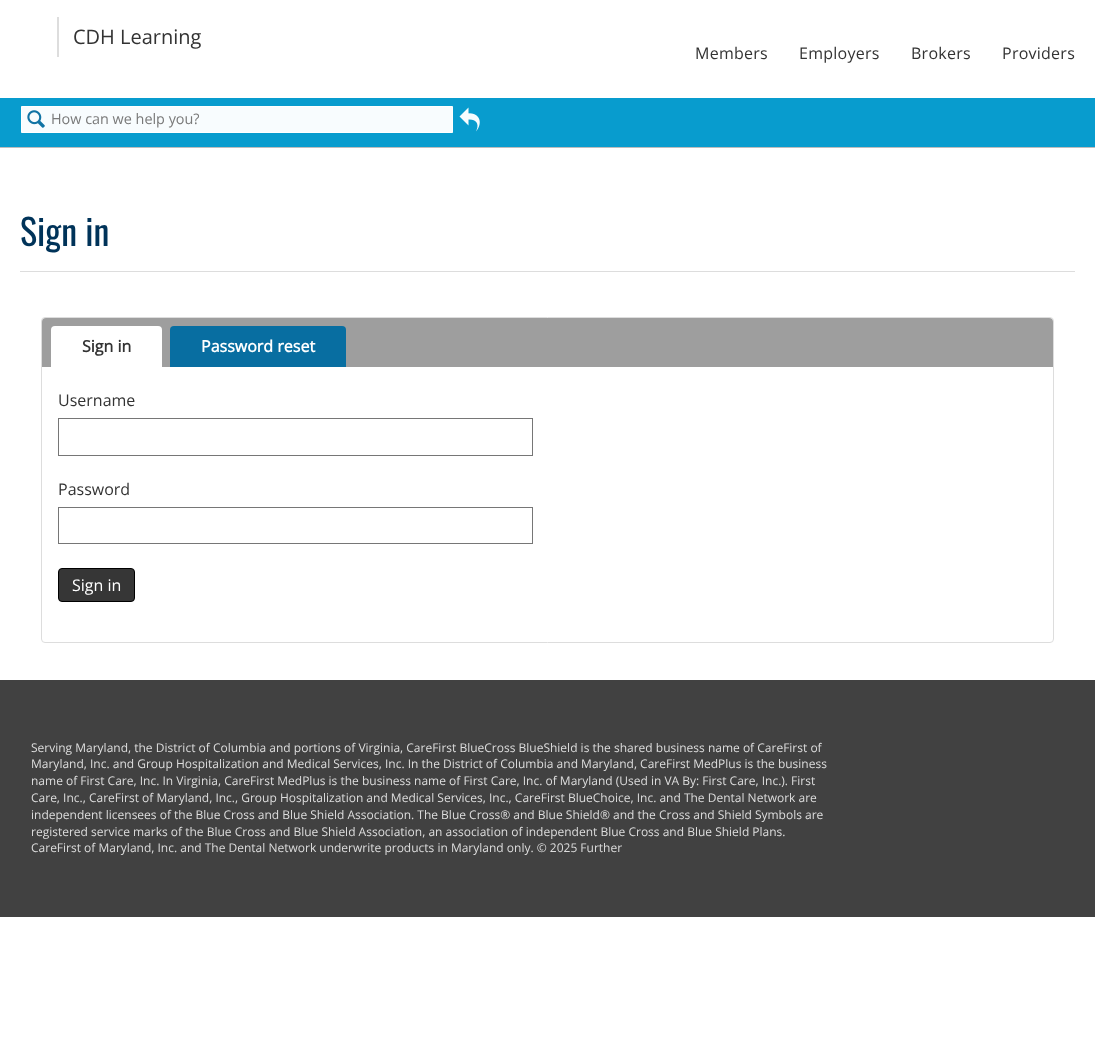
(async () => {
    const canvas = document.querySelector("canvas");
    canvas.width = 1095;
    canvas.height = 1045;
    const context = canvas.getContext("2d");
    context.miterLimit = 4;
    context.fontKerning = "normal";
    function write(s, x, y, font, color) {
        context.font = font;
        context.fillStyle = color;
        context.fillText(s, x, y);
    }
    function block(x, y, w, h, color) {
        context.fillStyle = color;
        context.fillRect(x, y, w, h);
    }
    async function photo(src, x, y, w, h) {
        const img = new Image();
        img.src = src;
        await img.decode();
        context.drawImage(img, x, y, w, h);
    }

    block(0, 0, 1095, 1045, "rgb(255, 255, 255)");
    block(0, 98, 1095, 49, "rgb(8, 156, 206)");
    block(57, 17, 2, 40, "rgb(221, 221, 221)");
    write("CDH Learning", 73, 44, "20px Open Sans", "rgb(51, 51, 51)");
    context.letterSpacing = "0.25px";
    write("Members", 695, 59, "16px Open Sans", "rgb(51, 51, 51)");
    write("Employers", 799, 59, "16px Open Sans", "rgb(51, 51, 51)");
    write("Brokers", 911, 59, "16px Open Sans", "rgb(51, 51, 51)");
    write("Providers", 1002, 59, "16px Open Sans", "rgb(51, 51, 51)");
    block(0, 147, 1095, 1, "rgb(189, 189, 189)");
    context.fillStyle = "rgb(248, 252, 254)";
    context.beginPath();
    context.rect(21.5, 106.5, 431, 26);
    context.fill();
    context.strokeStyle = "rgb(255, 255, 255)";
    context.stroke();
    await photo("media/1.png", 27, 110, 18, 18);
    context.letterSpacing = "0px";
    write("How can we help you?", 51, 124, "14.4px Open Sans", "rgb(121, 121, 121)");
    await photo("media/2.png", 459, 107, 21, 25);
    block(20, 271, 1055, 1, "rgb(221, 221, 221)");
    write("Sign in", 20, 246, "36px Oswald", "rgb(0, 51, 89)");
    context.beginPath();
    context.roundRect(41.5, 317.5, 1012, 325, 3.5);
    context.strokeStyle = "rgb(221, 221, 221)";
    context.stroke();
    context.fillStyle = "rgb(158, 158, 158)";
    context.beginPath();
    context.roundRect(42, 318, 1011, 49, [4, 4, 0, 0]);
    context.fill();
    context.fillStyle = "rgb(255, 255, 255)";
    context.beginPath();
    context.roundRect(51, 326, 111, 42, [4, 4, 0, 0]);
    context.fill();
    write("Sign in", 82, 352, "bold 16px Open Sans", "rgb(51, 51, 51)");
    context.fillStyle = "rgb(8, 110, 161)";
    context.beginPath();
    context.roundRect(170, 326, 176, 41, [4, 4, 0, 0]);
    context.fill();
    write("Password reset", 201, 352, "bold 16px Open Sans", "rgb(255, 255, 255)");
    write("Username", 58, 406, "16px Open Sans", "rgb(51, 51, 51)");
    context.strokeStyle = "rgb(118, 118, 118)";
    context.strokeRect(58.5, 418.5, 474, 37);
    write("Password", 58, 495, "16px Open Sans", "rgb(51, 51, 51)");
    context.strokeRect(58.5, 507.5, 474, 36);
    context.fillStyle = "rgb(54, 54, 54)";
    context.beginPath();
    context.roundRect(58.5, 568.5, 76, 33, 3.5);
    context.fill();
    context.strokeStyle = "rgb(0, 0, 0)";
    context.stroke();
    write("Sign in", 72, 591, "16px Open Sans", "rgb(255, 255, 255)");
    block(0, 680, 1095, 237, "rgb(65, 65, 65)");
    write("Serving Maryland, the District of Columbia and portions of Virginia, CareFirst BlueCross BlueShield is the shared business name of CareFirst of", 31, 752, "12px Open Sans", "rgb(221, 221, 221)");
    write("Maryland, Inc. and Group Hospitalization and Medical Services, Inc. In the District of Columbia and Maryland, CareFirst MedPlus is the business", 31, 768, "12px Open Sans", "rgb(221, 221, 221)");
    write("name of First Care, Inc. In Virginia, CareFirst MedPlus is the business name of First Care, Inc. of Maryland (Used in VA By: First Care, Inc.). First", 31, 785, "12px Open Sans", "rgb(221, 221, 221)");
    write("Care, Inc., CareFirst of Maryland, Inc., Group Hospitalization and Medical Services, Inc., CareFirst BlueChoice, Inc. and The Dental Network are", 31, 802, "12px Open Sans", "rgb(221, 221, 221)");
    write("independent licensees of the Blue Cross and Blue Shield Association. The Blue Cross® and Blue Shield® and the Cross and Shield Symbols are", 31, 819, "12px Open Sans", "rgb(221, 221, 221)");
    write("registered service marks of the Blue Cross and Blue Shield Association, an association of independent Blue Cross and Blue Shield Plans.", 31, 836, "12px Open Sans", "rgb(221, 221, 221)");
    write("CareFirst of Maryland, Inc. and The Dental Network underwrite products in Maryland only. © 2025 Further", 31, 852, "12px Open Sans", "rgb(221, 221, 221)");
})();
